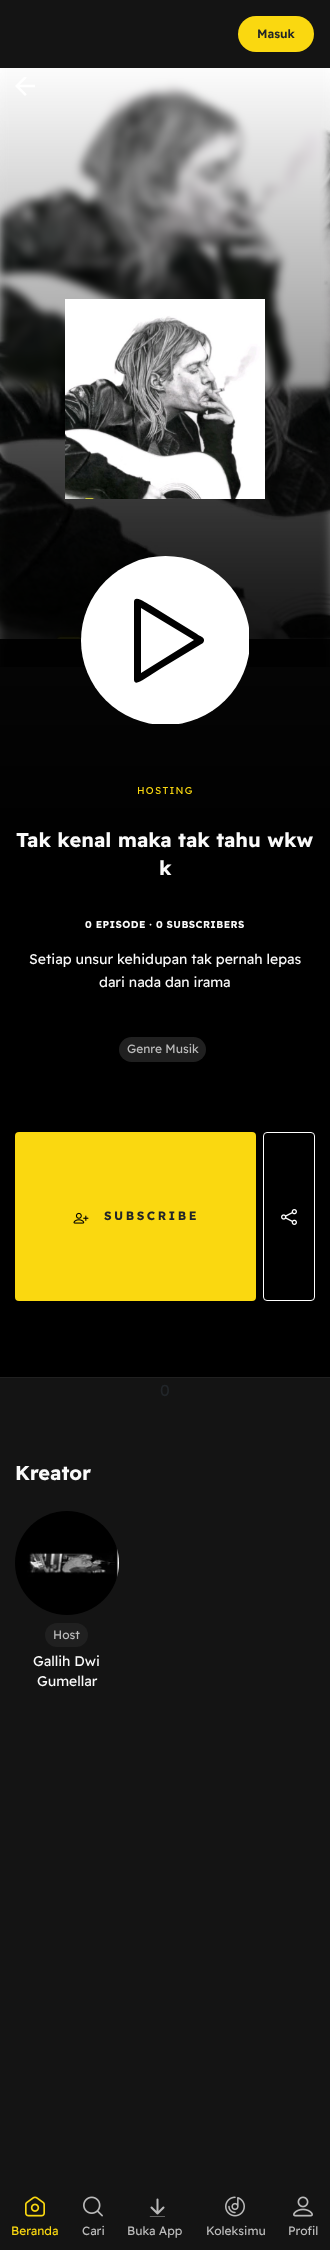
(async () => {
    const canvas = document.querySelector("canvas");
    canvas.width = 330;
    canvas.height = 2250;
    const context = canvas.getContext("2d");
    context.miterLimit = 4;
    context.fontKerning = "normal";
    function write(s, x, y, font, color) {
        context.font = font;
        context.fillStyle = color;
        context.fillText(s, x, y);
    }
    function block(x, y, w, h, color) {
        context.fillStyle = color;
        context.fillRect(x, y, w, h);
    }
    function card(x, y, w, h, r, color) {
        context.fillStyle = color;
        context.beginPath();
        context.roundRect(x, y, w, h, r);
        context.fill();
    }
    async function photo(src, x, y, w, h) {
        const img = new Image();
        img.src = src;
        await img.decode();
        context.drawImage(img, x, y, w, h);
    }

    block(0, 0, 330, 2250, "rgb(20, 20, 20)");
    card(238, 16, 76, 36, 18, "rgb(250, 216, 16)");
    write("Masuk", 257, 38, "600 12px Readex Pro", "rgb(33, 37, 41)");
    await photo("media/1.png", 0, 68, 330, 1309);
    block(0, 1377, 330, 1, "rgb(32, 32, 32)");
    await photo("media/2.png", 0, 68, 330, 599);
    await photo("media/3.png", 15, 77, 20, 19);
    await photo("media/4.png", 65, 299, 200, 200);
    context.save();
    context.beginPath();
    context.rect(81, 556, 168, 168);
    context.clip();
    context.fillStyle = "rgb(255, 255, 255)";
    context.beginPath();
    context.arc(165.5, 640.5, 84.5, 0, Math.PI * 2);
    context.fill();
    context.restore();
    context.fillStyle = "rgb(0, 0, 0)";
    context.beginPath();
    context.moveTo(194, 640);
    context.lineTo(141, 608);
    context.lineTo(141, 673);
    context.closePath();
    context.moveTo(171, 618);
    context.lineTo(197, 634);
    context.bezierCurveTo(199, 636, 205, 637, 204, 641);
    context.lineTo(203, 643);
    context.lineTo(160, 669);
    context.bezierCurveTo(144, 679, 135, 687, 134, 680);
    context.lineTo(134, 602);
    context.bezierCurveTo(134, 593, 149, 605, 150, 605);
    context.closePath();
    context.fill();
    context.letterSpacing = "1.25px";
    write("HOSTING", 137, 794, "10px Readex Pro", "rgb(250, 216, 16)");
    context.letterSpacing = "0px";
    write("Tak kenal maka tak tahu wkw", 16, 847, "bold 20px Readex Pro", "rgb(250, 250, 250)");
    write("k", 159, 875, "bold 20px Readex Pro", "rgb(250, 250, 250)");
    context.letterSpacing = "0.4px";
    write("0 EPISODE · 0 SUBSCRIBERS", 85, 928, "bold 10px Readex Pro", "rgb(250, 250, 250)");
    context.letterSpacing = "0px";
    write("Setiap unsur kehidupan tak pernah lepas", 29, 964, "14px Readex Pro", "rgb(250, 250, 250)");
    write("dari nada dan irama", 99, 987, "14px Readex Pro", "rgb(250, 250, 250)");
    card(119, 1037, 87, 25, 12.5, "rgb(32, 32, 32)");
    write("Genre Musik", 127, 1053, "12px Readex Pro", "rgb(188, 188, 188)");
    card(15, 1132, 241, 169, 4, "rgb(250, 216, 16)");
    await photo("media/5.png", 73, 1212, 16, 12);
    context.letterSpacing = "2.5px";
    write("SUBSCRIBE", 104, 1220, "bold 12px Readex Pro", "rgb(33, 37, 41)");
    context.beginPath();
    context.roundRect(263.5, 1132.5, 51, 168, 3.5);
    context.strokeStyle = "rgb(255, 255, 255)";
    context.stroke();
    await photo("media/6.png", 281, 1209, 16, 16);
    context.letterSpacing = "0px";
    write("0", 160, 1396, "16px Readex Pro", "rgb(33, 37, 41)");
    write("Kreator", 15, 1480, "bold 20px Readex Pro", "rgb(250, 250, 250)");
    await photo("media/7.png", 15, 1511, 104, 104);
    card(45, 1623, 43, 24, 12, "rgb(32, 32, 32)");
    write("Host", 53, 1639, "12px Readex Pro", "rgb(188, 188, 188)");
    write("Gallih Dwi", 33, 1666, "14px Readex Pro", "rgb(250, 250, 250)");
    write("Gumellar", 37, 1686, "14px Readex Pro", "rgb(250, 250, 250)");
    await photo("media/8.png", 25, 2196, 20, 21);
    write("Beranda", 11, 2235, "12px Readex Pro", "rgb(250, 216, 16)");
    await photo("media/9.png", 83, 2196, 20, 21);
    write("Cari", 82, 2235, "12px Readex Pro", "rgb(188, 188, 188)");
    await photo("media/10.png", 149, 2198, 16, 19);
    write("Buka App", 127, 2235, "12px Readex Pro", "rgb(188, 188, 188)");
    await photo("media/11.png", 225, 2196, 20, 21);
    write("Koleksimu", 206, 2235, "12px Readex Pro", "rgb(188, 188, 188)");
    await photo("media/12.png", 293, 2196, 20, 21);
    write("Profil", 288, 2235, "12px Readex Pro", "rgb(188, 188, 188)");
})();
